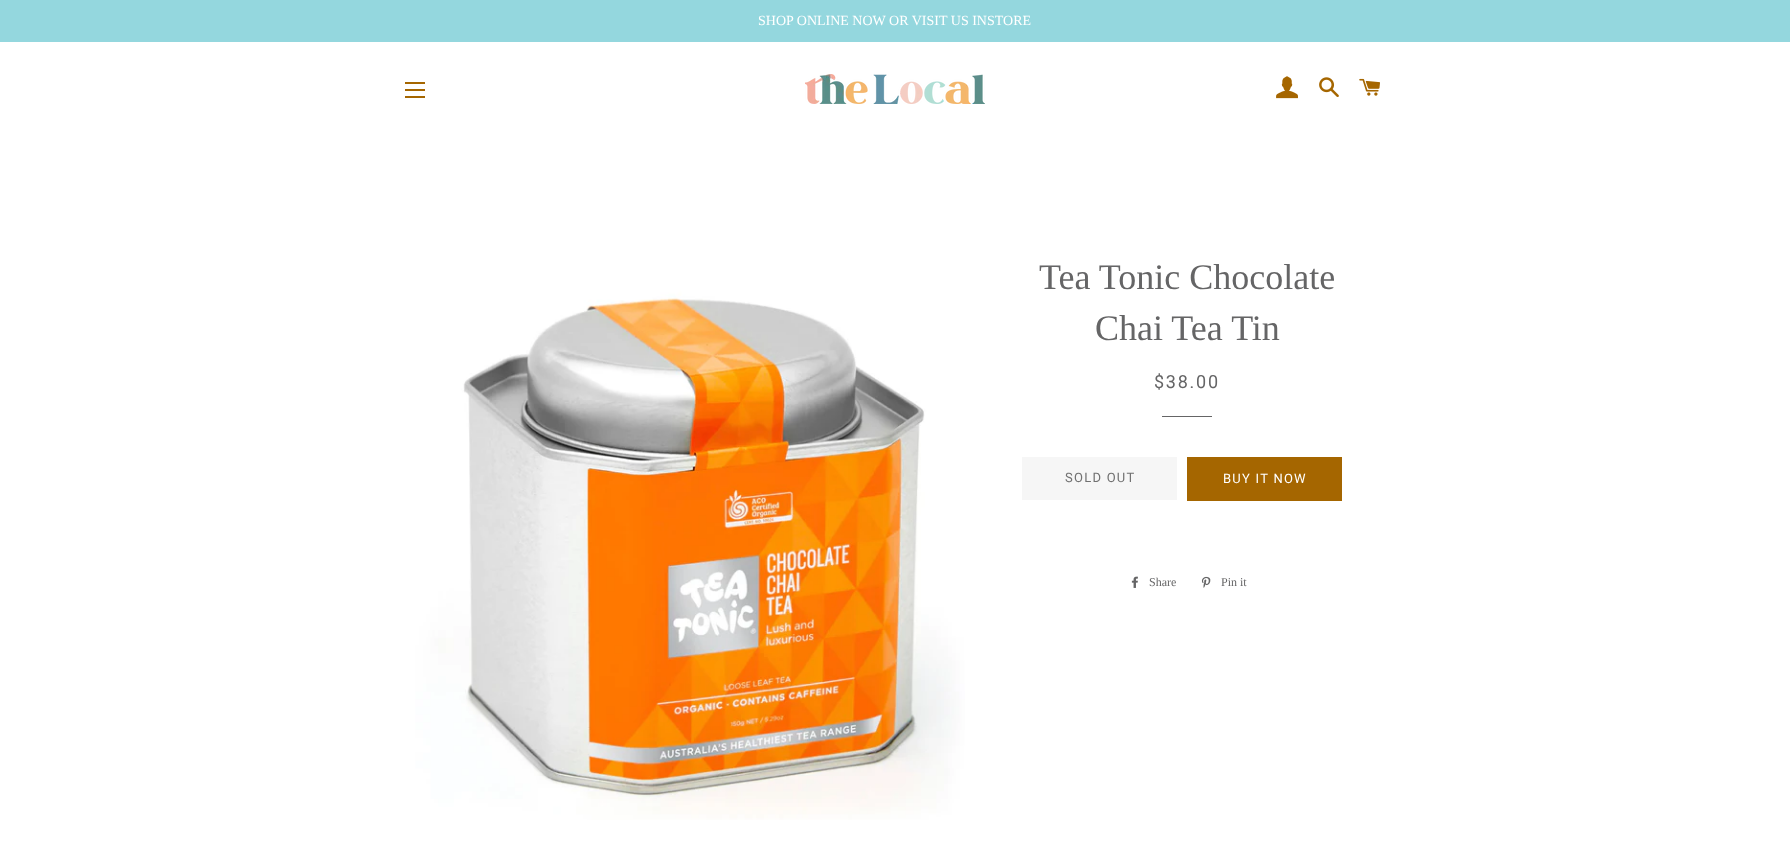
(async () => {
    const canvas = document.querySelector("canvas");
    canvas.width = 1790;
    canvas.height = 859;
    const context = canvas.getContext("2d");
    context.miterLimit = 4;
    context.fontKerning = "normal";
    function write(s, x, y, font, color) {
        context.font = font;
        context.fillStyle = color;
        context.fillText(s, x, y);
    }
    function block(x, y, w, h, color) {
        context.fillStyle = color;
        context.fillRect(x, y, w, h);
    }
    async function photo(src, x, y, w, h) {
        const img = new Image();
        img.src = src;
        await img.decode();
        context.drawImage(img, x, y, w, h);
    }

    block(0, 0, 1790, 859, "rgb(255, 255, 255)");
    block(0, 0, 1790, 42, "rgb(148, 215, 222)");
    write("SHOP ONLINE NOW OR VISIT US INSTORE", 758, 25, "14px Liberation Serif", "rgb(255, 255, 255)");
    block(405, 82, 20, 2, "rgb(165, 102, 0)");
    block(405, 89, 20, 2, "rgb(165, 102, 0)");
    block(405, 96, 20, 2, "rgb(165, 102, 0)");
    await photo("media/1.png", 805, 74, 180, 30);
    await photo("media/2.png", 1276, 76, 22, 23);
    await photo("media/3.png", 1319, 77, 20, 20);
    await photo("media/4.png", 1359, 78, 21, 18);
    await photo("media/5.png", 400, 216, 565, 604);
    write("Tea Tonic Chocolate", 1039, 289, "36px Liberation Serif", "rgb(101, 101, 102)");
    write("Chai Tea Tin", 1095, 340, "36px Liberation Serif", "rgb(101, 101, 102)");
    context.letterSpacing = "1.75px";
    write("$38.00", 1154, 388, "18px Roboto", "rgb(101, 101, 102)");
    block(1162, 416, 50, 1, "rgb(101, 101, 102)");
    block(1022, 457, 155, 43, "rgb(246, 246, 246)");
    context.letterSpacing = "1.25px";
    write("SOLD OUT", 1065, 482, "13px Roboto", "rgb(113, 113, 113)");
    block(1187, 457, 155, 44, "rgb(165, 102, 0)");
    write("BUY IT NOW", 1223, 483, "13px Roboto", "rgb(255, 255, 255)");
    await photo("media/6.png", 1131, 576, 7, 12);
    context.letterSpacing = "0px";
    write("Share", 1149, 586, "12px Liberation Serif", "rgb(101, 101, 102)");
    await photo("media/7.png", 1201, 576, 10, 12);
    write("Pin it", 1221, 586, "12px Liberation Serif", "rgb(101, 101, 102)");
})();
